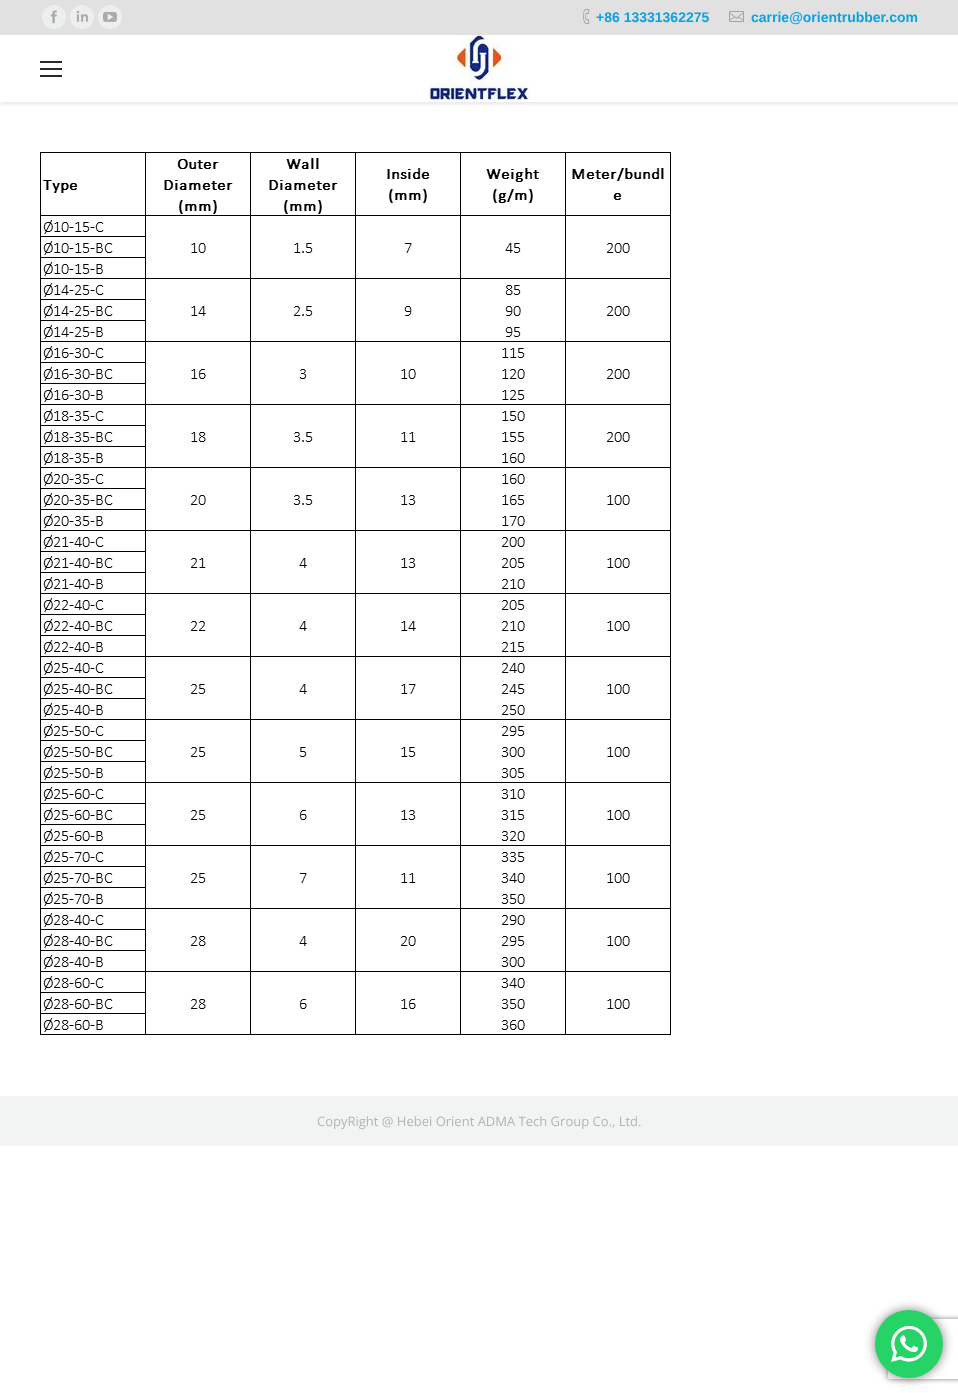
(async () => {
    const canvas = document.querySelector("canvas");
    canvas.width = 958;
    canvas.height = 1393;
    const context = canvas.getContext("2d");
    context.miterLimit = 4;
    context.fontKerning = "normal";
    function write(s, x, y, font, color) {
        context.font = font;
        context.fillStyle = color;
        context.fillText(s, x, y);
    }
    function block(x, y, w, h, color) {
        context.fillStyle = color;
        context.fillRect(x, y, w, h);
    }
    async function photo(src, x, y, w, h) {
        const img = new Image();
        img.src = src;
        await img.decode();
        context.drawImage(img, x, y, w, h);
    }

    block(0, 0, 958, 1393, "rgb(255, 255, 255)");
    context.save();
    context.beginPath();
    context.rect(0, 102, 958, 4);
    context.clip();
    context.fillStyle = "rgba(0, 0, 0, 0.1)";
    context.filter = "blur(2px)";
    context.beginPath();
    context.rect(0, 0, 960, 104);
    context.fill();
    context.filter = "none";
    context.restore();
    block(0, 0, 958, 35, "rgb(225, 225, 225)");
    context.fillStyle = "rgb(237, 238, 238)";
    context.beginPath();
    context.arc(54, 17, 12, 0, Math.PI * 2);
    context.fill();
    await photo("media/1.png", 50, 10, 7, 14);
    context.beginPath();
    context.arc(82, 17, 12, 0, Math.PI * 2);
    context.fill();
    await photo("media/2.png", 76, 10, 12, 12);
    context.beginPath();
    context.arc(110, 17, 12, 0, Math.PI * 2);
    context.fill();
    await photo("media/3.png", 103, 12, 14, 10);
    await photo("media/4.png", 582, 9, 8, 15);
    write("+86 13331362275", 596, 22, "bold 14px Liberation Sans", "rgb(12, 162, 224)");
    await photo("media/5.png", 729, 11, 15, 11);
    write("carrie@orientrubber.com", 751, 22, "bold 14px Liberation Sans", "rgb(12, 162, 224)");
    block(40, 68, 22, 2, "rgb(38, 43, 46)");
    block(40, 61, 22, 2, "rgb(38, 43, 46)");
    block(40, 75, 22, 2, "rgb(38, 43, 46)");
    await photo("media/6.png", 429, 35, 100, 67);
    await photo("media/7.png", 40, 152, 631, 883);
    block(0, 1096, 958, 50, "rgb(242, 243, 243)");
    write("CopyRight @ Hebei Orient ADMA Tech Group Co., Ltd.", 317, 1126, "13px Open Sans", "rgb(179, 181, 182)");
    context.fillStyle = "rgba(0, 0, 0, 0.5)";
    context.filter = "blur(5.5px)";
    context.beginPath();
    context.roundRect(875, 1310, 68, 68, 34);
    context.fill();
    context.filter = "none";
    context.save();
    context.beginPath();
    context.moveTo(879, 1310);
    context.lineTo(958, 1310);
    context.lineTo(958, 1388);
    context.lineTo(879, 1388);
    context.closePath();
    context.moveTo(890, 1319);
    context.lineTo(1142, 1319);
    context.bezierCurveTo(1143, 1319, 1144, 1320, 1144, 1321);
    context.lineTo(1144, 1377);
    context.bezierCurveTo(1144, 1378, 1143, 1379, 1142, 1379);
    context.lineTo(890, 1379);
    context.bezierCurveTo(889, 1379, 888, 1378, 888, 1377);
    context.lineTo(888, 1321);
    context.bezierCurveTo(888, 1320, 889, 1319, 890, 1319);
    context.closePath();
    context.clip("evenodd");
    context.fillStyle = "rgb(128, 128, 128)";
    context.filter = "blur(2.5px)";
    context.beginPath();
    context.roundRect(888, 1319, 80, 60, 2);
    context.fill();
    context.filter = "none";
    context.restore();
    context.fillStyle = "rgb(37, 211, 102)";
    context.beginPath();
    context.arc(909, 1344, 34, 0, Math.PI * 2);
    context.fill();
    await photo("media/8.png", 891, 1326, 36, 36);
})();
